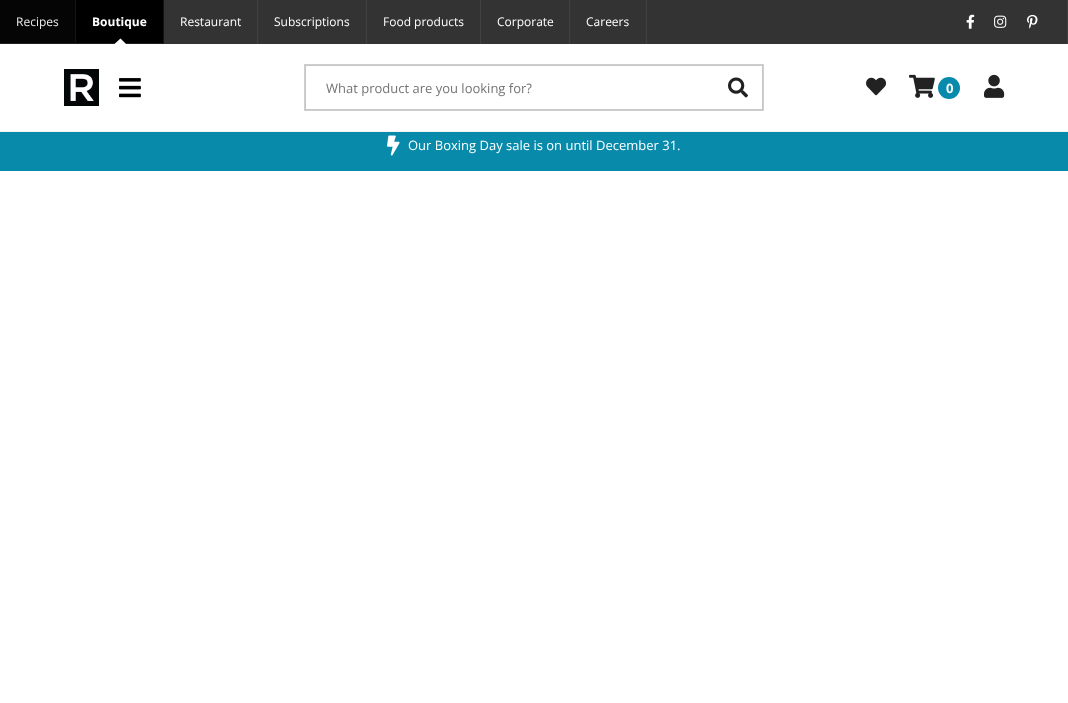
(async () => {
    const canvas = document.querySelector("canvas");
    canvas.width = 1068;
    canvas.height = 703;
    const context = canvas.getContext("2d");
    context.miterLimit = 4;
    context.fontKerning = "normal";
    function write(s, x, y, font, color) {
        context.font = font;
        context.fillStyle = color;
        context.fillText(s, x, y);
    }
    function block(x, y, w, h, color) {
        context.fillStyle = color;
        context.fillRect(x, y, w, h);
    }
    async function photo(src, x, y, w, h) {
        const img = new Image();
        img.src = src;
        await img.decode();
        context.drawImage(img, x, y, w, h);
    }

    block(0, 0, 1068, 703, "rgb(255, 255, 255)");
    block(164, 0, 903, 44, "rgb(51, 51, 51)");
    block(0, 0, 75, 43, "rgb(5, 5, 5)");
    block(75, 0, 1, 44, "rgb(21, 21, 21)");
    write("Recipes", 16, 26, "12px Open Sans", "rgb(235, 235, 235)");
    block(0, 43, 75, 1, "rgb(33, 33, 33)");
    block(76, 0, 87, 43, "rgb(0, 0, 0)");
    block(163, 0, 1, 44, "rgb(18, 18, 18)");
    write("Boutique", 92, 26, "bold 12px Open Sans", "rgb(255, 255, 255)");
    block(76, 43, 87, 1, "rgb(31, 31, 31)");
    context.save();
    context.beginPath();
    context.rect(76, 0, 87, 44);
    context.clip();
    context.fillStyle = "rgb(255, 255, 255)";
    context.beginPath();
    context.moveTo(120.5, 38.5);
    context.lineTo(126, 44);
    context.lineTo(120.5, 50);
    context.lineTo(114.5, 44);
    context.closePath();
    context.fill();
    context.restore();
    context.fillStyle = "rgba(255, 255, 255, 0.15)";
    context.beginPath();
    context.moveTo(120.5, 38.5);
    context.lineTo(126, 44);
    context.lineTo(125.5, 45);
    context.lineTo(120.5, 40);
    context.closePath();
    context.fill();
    context.beginPath();
    context.moveTo(114.5, 44);
    context.lineTo(120.5, 38.5);
    context.lineTo(120.5, 40);
    context.lineTo(115.5, 45);
    context.closePath();
    context.fill();
    block(257, 0, 1, 44, "rgb(65, 65, 65)");
    write("Restaurant", 180, 26, "12px Open Sans", "rgb(255, 255, 255)");
    block(366, 0, 1, 44, "rgb(65, 65, 65)");
    write("Subscriptions", 274, 26, "12px Open Sans", "rgb(255, 255, 255)");
    block(480, 0, 1, 44, "rgb(65, 65, 65)");
    write("Food products", 383, 26, "12px Open Sans", "rgb(255, 255, 255)");
    block(569, 0, 1, 44, "rgb(65, 65, 65)");
    write("Corporate", 497, 26, "12px Open Sans", "rgb(255, 255, 255)");
    block(646, 0, 1, 44, "rgb(65, 65, 65)");
    write("Careers", 586, 26, "12px Open Sans", "rgb(255, 255, 255)");
    block(1067, 0, 1, 44, "rgb(65, 65, 65)");
    await photo("media/1.png", 966, 14, 9, 15);
    await photo("media/2.png", 994, 15, 13, 13);
    await photo("media/3.png", 1027, 14, 11, 15);
    block(0, 131, 1068, 1, "rgb(243, 243, 243)");
    await photo("media/4.png", 64, 69, 35, 37);
    await photo("media/5.png", 119, 78, 22, 20);
    context.strokeStyle = "rgb(206, 206, 206)";
    context.strokeRect(304.5, 64.5, 459, 46);
    context.strokeStyle = "rgb(199, 199, 199)";
    context.strokeRect(305.5, 65.5, 457, 44);
    write("What product are you looking for?", 326, 93, "13px Open Sans", "rgb(117, 117, 117)");
    await photo("media/6.png", 728, 77, 20, 21);
    await photo("media/7.png", 866, 77, 20, 19);
    await photo("media/8.png", 909, 74, 26, 24);
    context.fillStyle = "rgb(7, 138, 171)";
    context.beginPath();
    context.arc(949, 88, 11, 0, Math.PI * 2);
    context.fill();
    write("0", 946, 93, "bold 13px Open Sans", "rgb(255, 255, 255)");
    await photo("media/9.png", 984, 74, 21, 24);
    block(0, 132, 1068, 39, "rgb(8, 138, 171)");
    await photo("media/10.png", 387, 135, 13, 21);
    write("Our Boxing Day sale is on until December 31.", 408, 150, "13px Open Sans", "rgb(255, 255, 255)");
})();
